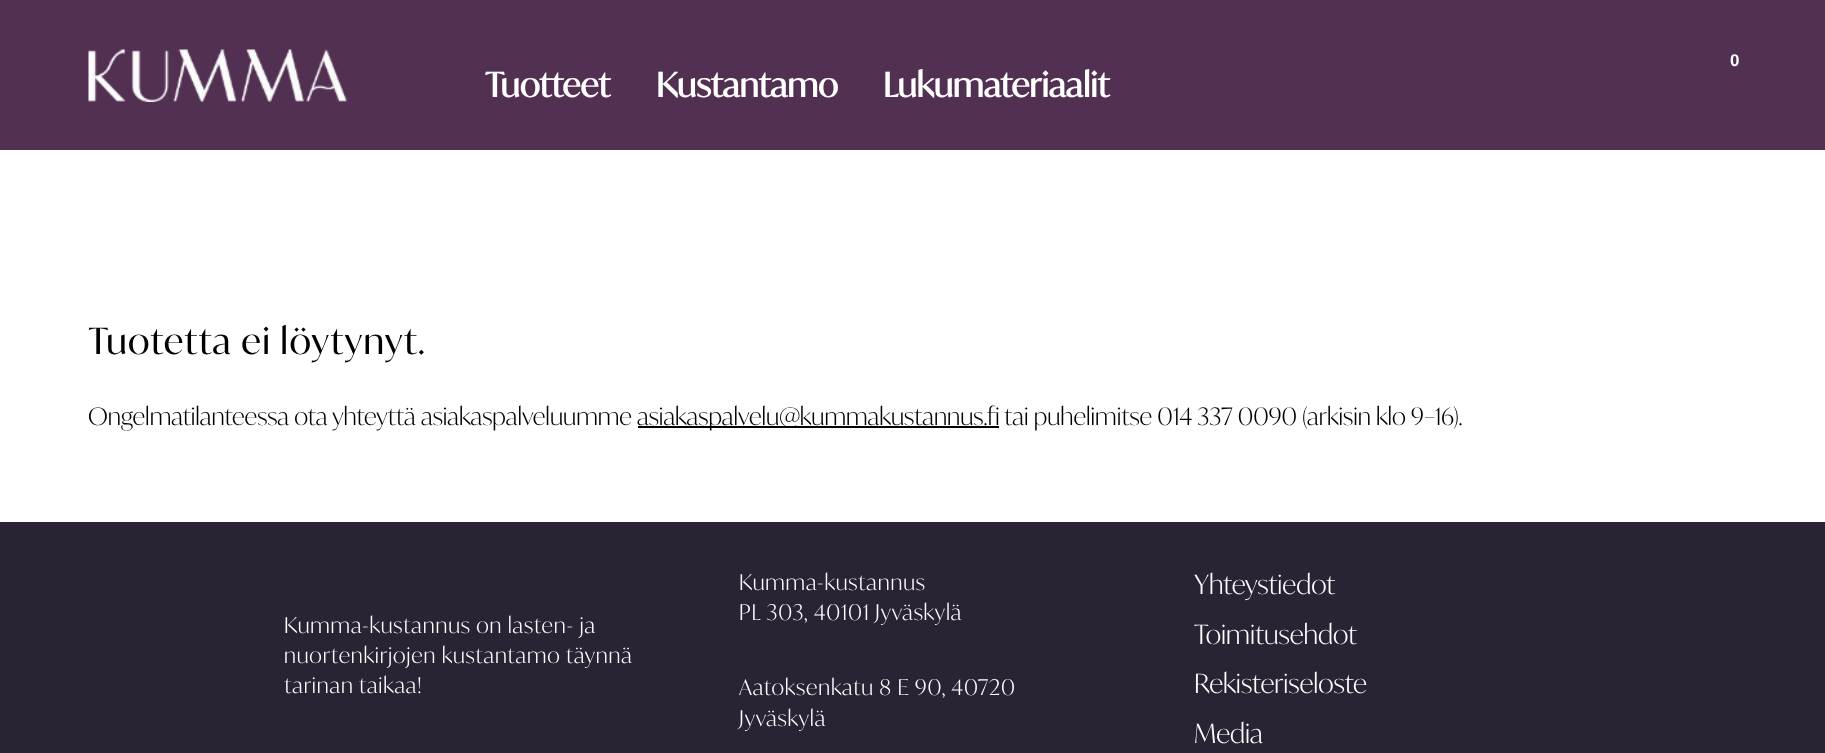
(async () => {
    const canvas = document.querySelector("canvas");
    canvas.width = 1825;
    canvas.height = 753;
    const context = canvas.getContext("2d");
    context.miterLimit = 4;
    context.fontKerning = "normal";
    function write(s, x, y, font, color) {
        context.font = font;
        context.fillStyle = color;
        context.fillText(s, x, y);
    }
    function block(x, y, w, h, color) {
        context.fillStyle = color;
        context.fillRect(x, y, w, h);
    }
    async function photo(src, x, y, w, h) {
        const img = new Image();
        img.src = src;
        await img.decode();
        context.drawImage(img, x, y, w, h);
    }

    block(0, 0, 1825, 753, "rgb(255, 255, 255)");
    block(0, 0, 1825, 150, "rgb(82, 48, 82)");
    await photo("media/1.png", 88, 49, 259, 53);
    write("0", 1730, 66, "bold 17px Liberation Sans", "rgb(255, 255, 255)");
    write("Tuotteet", 485, 97, "bold 33.5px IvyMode", "rgb(255, 255, 255)");
    write("Kustantamo", 656, 97, "bold 33.5px IvyMode", "rgb(255, 255, 255)");
    write("Lukumateriaalit", 883, 97, "bold 33.5px IvyMode", "rgb(255, 255, 255)");
    context.save();
    context.beginPath();
    context.rect(89, 240, 1650, 192);
    context.clip();
    context.letterSpacing = "1.4px";
    write("Tuotetta ei löytynyt.", 88, 354, "36px IvyMode", "rgb(0, 0, 0)");
    context.letterSpacing = "0px";
    write("Ongelmatilanteessa ota yhteyttä asiakaspalveluumme", 88, 425, "300 24px IvyMode", "rgb(0, 0, 0)");
    context.restore();
    block(638, 426, 361, 2, "rgb(0, 0, 0)");
    write("asiakaspalvelu@kummakustannus.fi", 637, 425, "300 24px IvyMode", "rgb(0, 0, 0)");
    write("tai puhelimitse 014 337 0090 (arkisin klo 9–16).", 1004, 425, "300 24px IvyMode", "rgb(0, 0, 0)");
    block(0, 522, 1825, 231, "rgb(42, 35, 51)");
    context.letterSpacing = "0.85px";
    write("Kumma-kustannus on lasten- ja", 284, 633, "300 21.6px IvyMode", "rgb(255, 255, 255)");
    write("nuortenkirjojen kustantamo täynnä", 284, 663, "300 21.6px IvyMode", "rgb(255, 255, 255)");
    write("tarinan taikaa!", 284, 693, "300 21.6px IvyMode", "rgb(255, 255, 255)");
    write("Kumma-kustannus", 739, 590, "300 21.6px IvyMode", "rgb(255, 255, 255)");
    write("PL 303, 40101 Jyväskylä", 739, 620, "300 21.6px IvyMode", "rgb(255, 255, 255)");
    write("Aatoksenkatu 8 E 90, 40720", 739, 695, "300 21.6px IvyMode", "rgb(255, 255, 255)");
    write("Jyväskylä", 739, 726, "300 21.6px IvyMode", "rgb(255, 255, 255)");
    context.letterSpacing = "0px";
    write("Yhteystiedot", 1194, 594, "300 26.5px IvyMode", "rgb(255, 255, 255)");
    write("Toimitusehdot", 1194, 644, "300 26.5px IvyMode", "rgb(255, 255, 255)");
    write("Rekisteriseloste", 1194, 693, "300 26.5px IvyMode", "rgb(255, 255, 255)");
    write("Media", 1194, 743, "300 26.5px IvyMode", "rgb(255, 255, 255)");
})();
